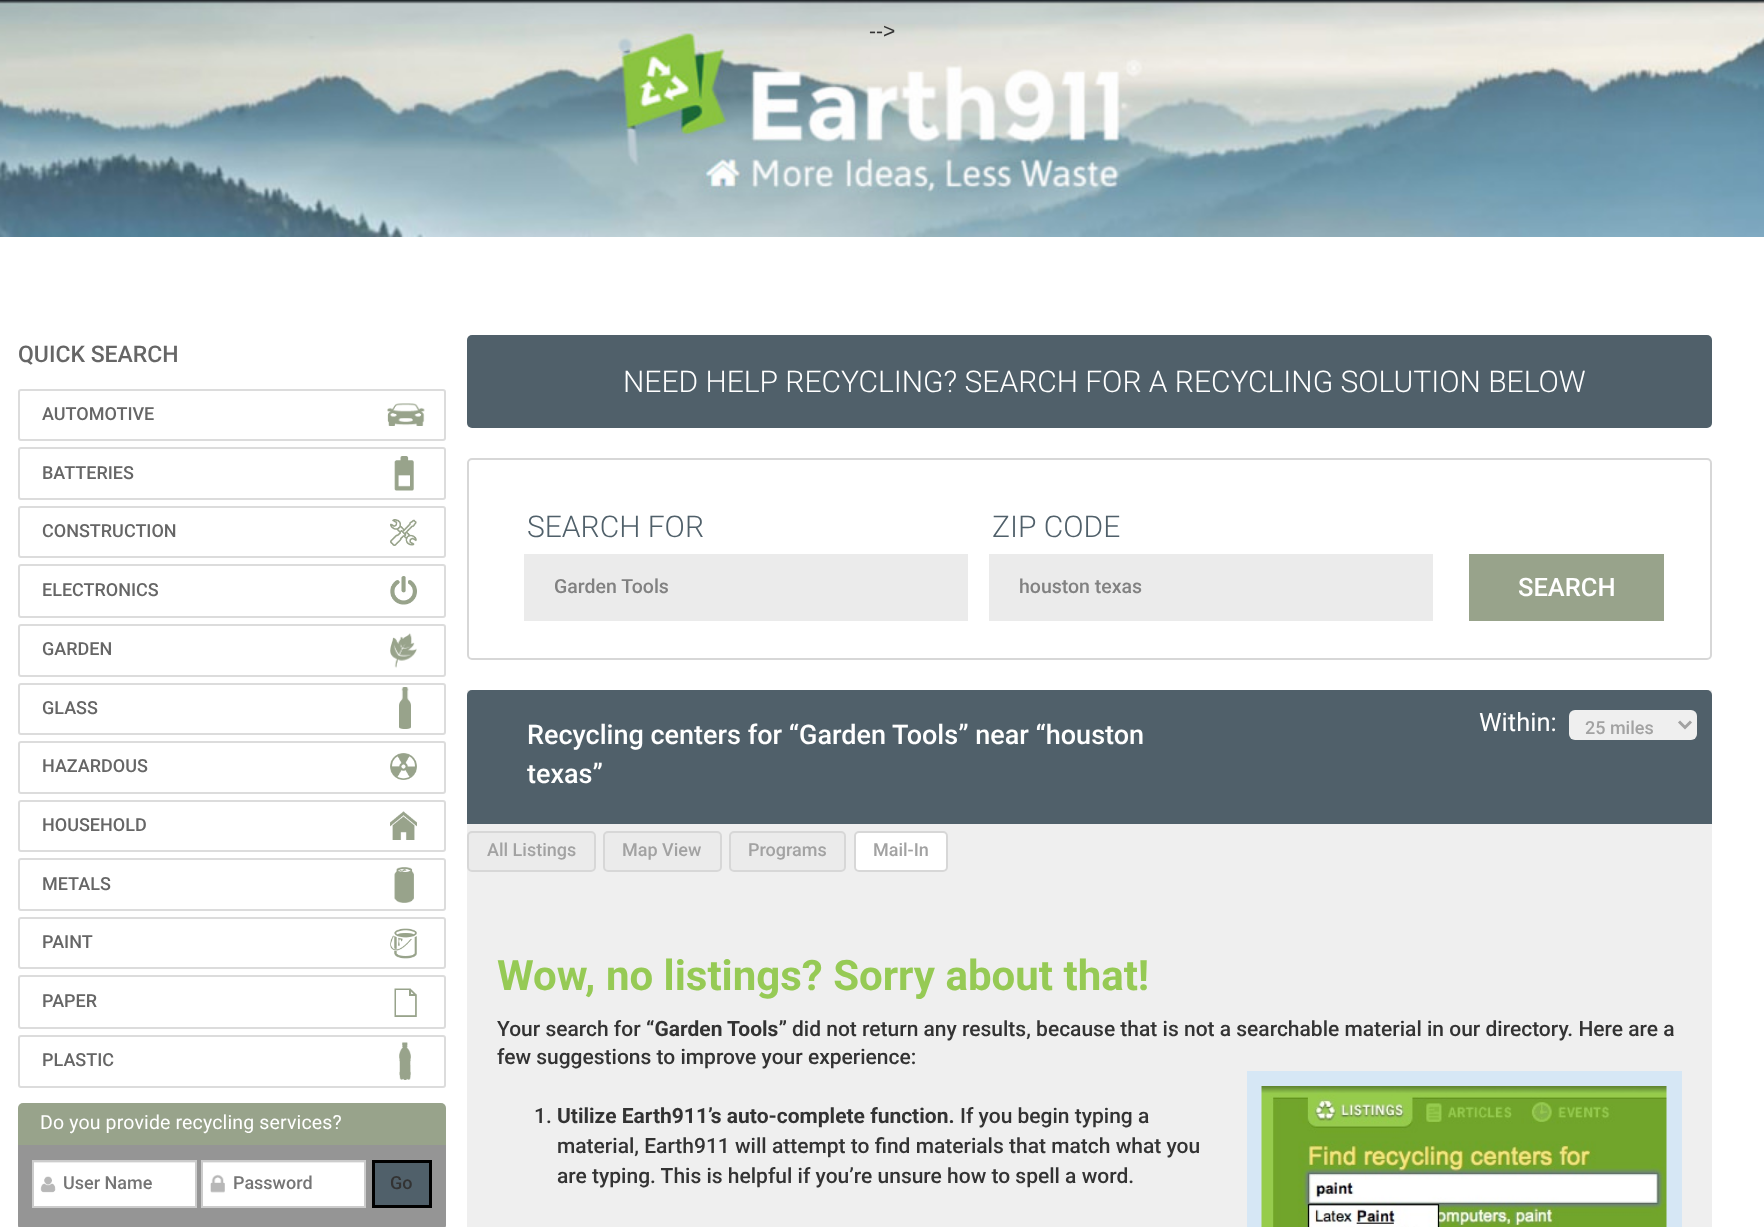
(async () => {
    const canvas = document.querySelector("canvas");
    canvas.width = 1764;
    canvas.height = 1227;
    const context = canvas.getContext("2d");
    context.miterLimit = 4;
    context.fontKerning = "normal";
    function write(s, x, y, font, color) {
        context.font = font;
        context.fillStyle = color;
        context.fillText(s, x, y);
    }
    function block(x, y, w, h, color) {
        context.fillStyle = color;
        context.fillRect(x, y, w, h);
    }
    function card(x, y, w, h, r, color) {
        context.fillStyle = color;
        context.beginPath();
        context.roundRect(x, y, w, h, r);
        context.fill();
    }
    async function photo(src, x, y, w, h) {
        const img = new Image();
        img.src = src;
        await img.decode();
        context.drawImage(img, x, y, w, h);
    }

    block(0, 0, 1764, 1227, "rgb(255, 255, 255)");
    await photo("media/1.png", 0, 0, 1764, 237);
    write("-->", 869, 38, "21px Liberation Sans", "rgb(51, 51, 51)");
    write("QUICK SEARCH", 18, 362, "500 23px Roboto", "rgb(102, 102, 102)");
    await photo("media/2.png", 387, 403, 38, 23);
    context.beginPath();
    context.roundRect(19, 390, 426, 50, 2);
    context.strokeStyle = "rgb(220, 220, 220)";
    context.lineWidth = 2;
    context.stroke();
    write("AUTOMOTIVE", 42, 420, "500 18px Roboto", "rgb(102, 102, 102)");
    await photo("media/3.png", 394, 456, 20, 35);
    context.beginPath();
    context.roundRect(19, 448, 426, 51, 2);
    context.stroke();
    write("BATTERIES", 42, 479, "500 18px Roboto", "rgb(102, 102, 102)");
    await photo("media/4.png", 390, 519, 27, 27);
    context.beginPath();
    context.roundRect(19, 507, 426, 50, 2);
    context.stroke();
    write("CONSTRUCTION", 42, 537, "500 18px Roboto", "rgb(102, 102, 102)");
    await photo("media/5.png", 390, 576, 27, 29);
    context.beginPath();
    context.roundRect(19, 565, 426, 52, 2);
    context.stroke();
    write("ELECTRONICS", 42, 596, "500 18px Roboto", "rgb(102, 102, 102)");
    await photo("media/6.png", 390, 633, 27, 35);
    context.beginPath();
    context.roundRect(19, 625, 426, 51, 2);
    context.stroke();
    write("GARDEN", 42, 655, "500 18px Roboto", "rgb(102, 102, 102)");
    await photo("media/7.png", 399, 687, 12, 42);
    context.beginPath();
    context.roundRect(19, 684, 426, 50, 2);
    context.stroke();
    write("GLASS", 42, 714, "500 18px Roboto", "rgb(102, 102, 102)");
    await photo("media/8.png", 390, 753, 27, 27);
    context.beginPath();
    context.roundRect(19, 742, 426, 51, 2);
    context.stroke();
    write("HAZARDOUS", 42, 772, "500 18px Roboto", "rgb(102, 102, 102)");
    await photo("media/9.png", 390, 811, 27, 29);
    context.beginPath();
    context.roundRect(19, 801, 426, 50, 2);
    context.stroke();
    write("HOUSEHOLD", 42, 831, "500 18px Roboto", "rgb(102, 102, 102)");
    await photo("media/10.png", 394, 867, 20, 36);
    context.beginPath();
    context.roundRect(19, 859, 426, 51, 2);
    context.stroke();
    write("METALS", 42, 890, "500 18px Roboto", "rgb(102, 102, 102)");
    await photo("media/11.png", 390, 928, 27, 31);
    context.beginPath();
    context.roundRect(19, 918, 426, 50, 2);
    context.stroke();
    write("PAINT", 42, 948, "500 18px Roboto", "rgb(102, 102, 102)");
    await photo("media/12.png", 394, 988, 23, 29);
    context.beginPath();
    context.roundRect(19, 976, 426, 52, 2);
    context.stroke();
    write("PAPER", 42, 1007, "500 18px Roboto", "rgb(102, 102, 102)");
    await photo("media/13.png", 399, 1042, 12, 38);
    context.beginPath();
    context.roundRect(19, 1036, 426, 51, 2);
    context.stroke();
    write("PLASTIC", 42, 1066, "500 18px Roboto", "rgb(102, 102, 102)");
    context.fillStyle = "rgb(152, 163, 139)";
    context.beginPath();
    context.roundRect(18, 1103, 428, 42, [5, 5, 0, 0]);
    context.fill();
    context.letterSpacing = "0.15px";
    write("Do you provide recycling services?", 40, 1129, "19.5px Roboto", "rgb(255, 255, 255)");
    context.fillStyle = "rgb(149, 149, 149)";
    context.beginPath();
    context.moveTo(18, 1145);
    context.lineTo(446, 1145);
    context.lineTo(446, 1225);
    context.bezierCurveTo(446, 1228, 444, 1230, 441, 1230);
    context.lineTo(23, 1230);
    context.bezierCurveTo(20, 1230, 18, 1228, 18, 1225);
    context.closePath();
    context.fill();
    block(34, 1163, 161, 43, "rgb(255, 255, 255)");
    await photo("media/14.png", 40, 1176, 16, 17);
    block(33, 1162, 162, 1, "rgb(236, 236, 236)");
    context.strokeStyle = "rgb(204, 204, 204)";
    context.strokeRect(33, 1161, 163, 46);
    context.letterSpacing = "0px";
    write("User Name", 63, 1189, "500 18px Roboto", "rgb(117, 117, 117)");
    block(203, 1163, 161, 43, "rgb(255, 255, 255)");
    await photo("media/15.png", 210, 1174, 15, 19);
    block(203, 1162, 162, 1, "rgb(236, 236, 236)");
    context.strokeRect(202, 1161, 163, 46);
    write("Password", 233, 1189, "500 18px Roboto", "rgb(117, 117, 117)");
    context.fillStyle = "rgb(80, 96, 106)";
    context.beginPath();
    context.rect(373.5, 1161.5, 57, 45);
    context.fill();
    context.strokeStyle = "rgb(0, 0, 0)";
    context.lineWidth = 3;
    context.stroke();
    write("Go", 390, 1189, "500 18px Roboto", "rgb(51, 51, 51)");
    card(467, 335, 1245, 93, 5, "rgb(80, 96, 106)");
    write("NEED HELP RECYCLING? SEARCH FOR A RECYCLING SOLUTION BELOW", 623, 392, "300 30px Roboto", "rgb(255, 255, 255)");
    context.beginPath();
    context.roundRect(468, 459, 1243, 200, 4);
    context.strokeStyle = "rgb(215, 215, 215)";
    context.lineWidth = 2;
    context.stroke();
    write("SEARCH FOR", 527, 537, "300 30px Roboto", "rgb(80, 96, 106)");
    block(524, 554, 444, 67, "rgb(235, 235, 235)");
    write("Garden Tools", 554, 593, "500 19.5px Roboto", "rgb(129, 129, 129)");
    write("ZIP CODE", 992, 537, "300 30px Roboto", "rgb(80, 96, 106)");
    block(989, 554, 444, 67, "rgb(235, 235, 235)");
    write("houston texas", 1019, 593, "500 19.5px Roboto", "rgb(129, 129, 129)");
    block(1469, 554, 195, 67, "rgb(152, 163, 139)");
    write("SEARCH", 1518, 596, "500 25.5px Roboto", "rgb(255, 255, 255)");
    block(467, 690, 1245, 537, "rgb(239, 239, 239)");
    context.fillStyle = "rgb(80, 96, 106)";
    context.beginPath();
    context.roundRect(467, 690, 1245, 134, [5, 5, 0, 0]);
    context.fill();
    write("Recycling centers for “Garden Tools” near “houston", 527, 744, "500 27px Roboto", "rgb(255, 255, 255)");
    write("texas”", 527, 783, "500 27px Roboto", "rgb(255, 255, 255)");
    write("Within:", 1479, 731, "25.5px Roboto", "rgb(255, 255, 255)");
    card(1569, 710, 128, 30, 6, "rgb(239, 239, 239)");
    context.beginPath();
    context.moveTo(1679, 721.5);
    context.lineTo(1685, 727.5);
    context.lineTo(1691, 721.5);
    context.strokeStyle = "rgb(162, 162, 162)";
    context.lineWidth = 3;
    context.stroke();
    write("25 miles", 1585, 734, "500 18px Roboto", "rgb(162, 162, 162)");
    context.fillStyle = "rgb(235, 235, 235)";
    context.beginPath();
    context.roundRect(468, 832, 127, 39, 4);
    context.fill();
    context.strokeStyle = "rgb(215, 215, 215)";
    context.lineWidth = 2;
    context.stroke();
    write("All Listings", 487, 856, "500 18px Roboto", "rgb(162, 162, 162)");
    context.fillStyle = "rgb(235, 235, 235)";
    context.beginPath();
    context.roundRect(604, 832, 117, 39, 4);
    context.fill();
    context.stroke();
    write("Map View", 622, 856, "500 18px Roboto", "rgb(162, 162, 162)");
    context.fillStyle = "rgb(235, 235, 235)";
    context.beginPath();
    context.roundRect(730, 832, 115, 39, 4);
    context.fill();
    context.stroke();
    write("Programs", 748, 856, "500 18px Roboto", "rgb(162, 162, 162)");
    context.fillStyle = "rgb(255, 255, 255)";
    context.beginPath();
    context.roundRect(855, 832, 92, 39, 4);
    context.fill();
    context.stroke();
    write("Mail-In", 873, 856, "500 18px Roboto", "rgb(162, 162, 162)");
    write("Wow, no listings? Sorry about that!", 497, 990, "bold 42px Roboto", "rgb(150, 202, 85)");
    write("Your search for", 497, 1036, "500 21px Roboto", "rgb(51, 51, 51)");
    write("“Garden Tools”", 646, 1036, "bold 21px Roboto", "rgb(51, 51, 51)");
    write("did not return any results, because that is not a searchable material in our directory. Here are a", 792, 1036, "500 21px Roboto", "rgb(51, 51, 51)");
    write("few suggestions to improve your experience:", 497, 1064, "500 21px Roboto", "rgb(51, 51, 51)");
    write("1.", 534, 1123, "500 21px Roboto", "rgb(51, 51, 51)");
    write("Utilize Earth911’s auto-complete function.", 557, 1123, "bold 21px Roboto", "rgb(51, 51, 51)");
    write("If you begin typing a", 960, 1123, "500 21px Roboto", "rgb(51, 51, 51)");
    block(1247, 1071, 435, 156, "rgb(214, 231, 245)");
    await photo("media/16.png", 1261, 1086, 406, 141);
    write("material, Earth911 will attempt to find materials that match what you", 557, 1153, "500 21px Roboto", "rgb(51, 51, 51)");
    write("are typing. This is helpful if you’re unsure how to spell a word.", 557, 1183, "500 21px Roboto", "rgb(51, 51, 51)");
})();
